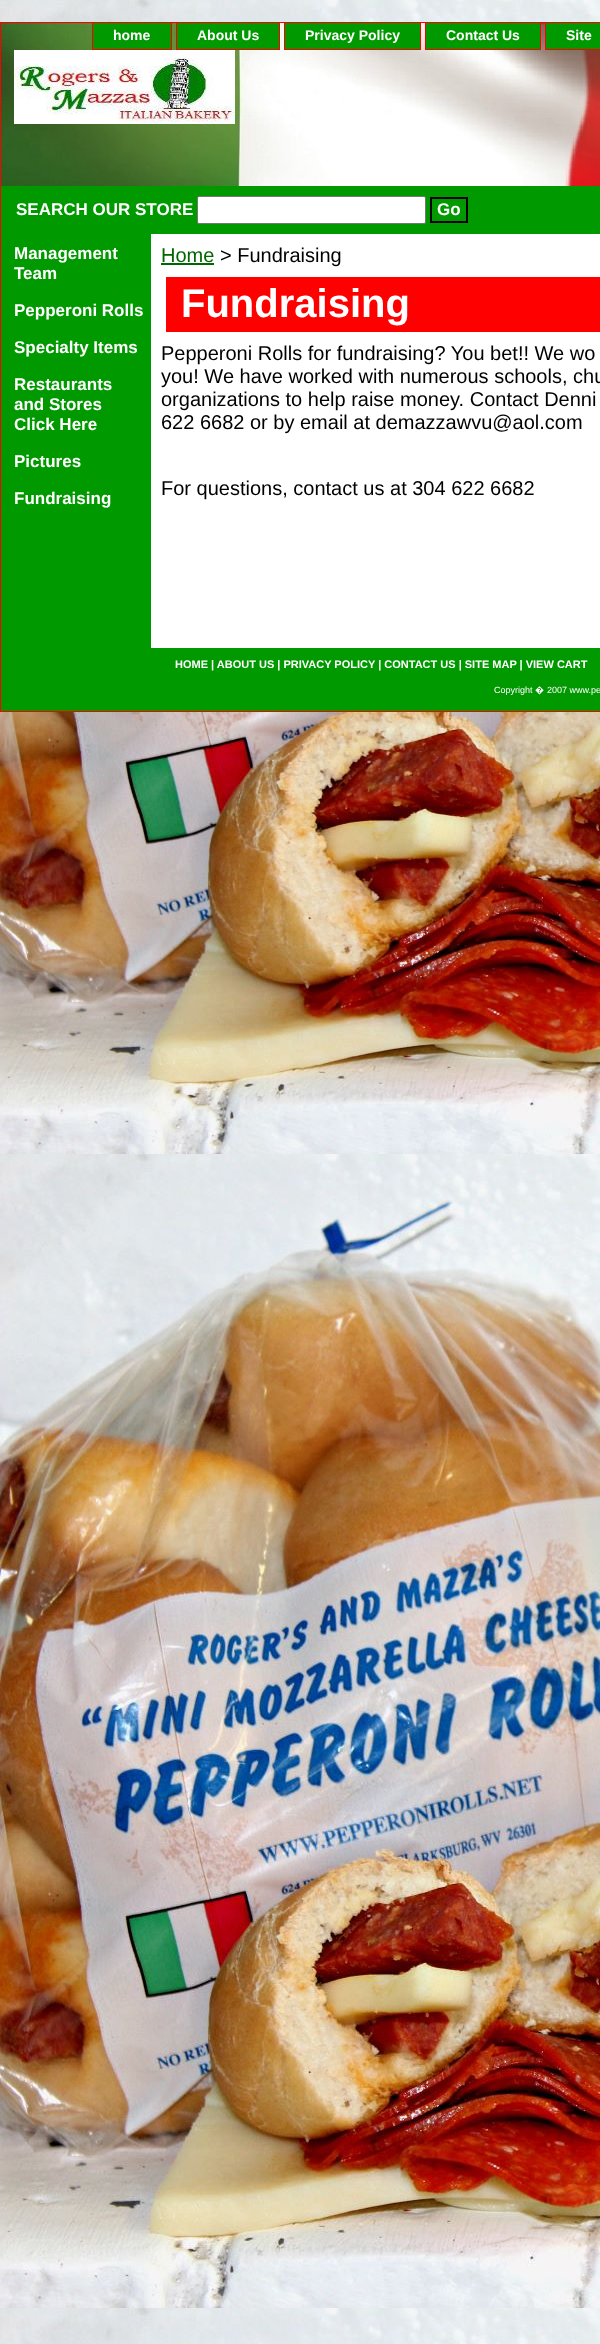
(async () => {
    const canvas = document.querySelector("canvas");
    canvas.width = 600;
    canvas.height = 2344;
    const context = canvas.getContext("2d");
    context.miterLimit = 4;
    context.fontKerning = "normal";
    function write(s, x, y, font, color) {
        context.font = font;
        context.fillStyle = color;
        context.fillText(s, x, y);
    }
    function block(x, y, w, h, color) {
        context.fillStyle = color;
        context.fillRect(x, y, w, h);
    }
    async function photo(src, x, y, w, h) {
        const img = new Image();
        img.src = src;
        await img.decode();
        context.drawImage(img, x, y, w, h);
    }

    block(0, 0, 600, 2344, "rgb(255, 255, 255)");
    await photo("media/1.png", 0, 0, 600, 2344);
    block(151, 234, 449, 414, "rgb(255, 255, 255)");
    context.strokeStyle = "rgb(255, 0, 0)";
    context.strokeRect(0.5, 22.5, 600, 689);
    await photo("media/2.png", 1, 23, 599, 163);
    block(93, 23, 78, 26, "rgb(0, 153, 0)");
    block(171, 23, 1, 27, "rgb(255, 0, 0)");
    block(92, 49, 80, 1, "rgb(255, 0, 0)");
    block(92, 23, 1, 27, "rgb(255, 0, 0)");
    write("home", 113, 40, "bold 14px Liberation Sans", "rgb(255, 255, 255)");
    block(177, 23, 102, 26, "rgb(0, 153, 0)");
    block(279, 23, 1, 27, "rgb(255, 0, 0)");
    block(176, 49, 104, 1, "rgb(255, 0, 0)");
    block(176, 23, 1, 27, "rgb(255, 0, 0)");
    write("About Us", 197, 40, "bold 14px Liberation Sans", "rgb(255, 255, 255)");
    block(285, 23, 135, 26, "rgb(0, 153, 0)");
    block(420, 23, 1, 27, "rgb(255, 0, 0)");
    block(284, 49, 137, 1, "rgb(255, 0, 0)");
    block(284, 23, 1, 27, "rgb(255, 0, 0)");
    write("Privacy Policy", 305, 40, "bold 14px Liberation Sans", "rgb(255, 255, 255)");
    block(426, 23, 114, 26, "rgb(0, 153, 0)");
    block(540, 23, 1, 27, "rgb(255, 0, 0)");
    block(425, 49, 116, 1, "rgb(255, 0, 0)");
    block(425, 23, 1, 27, "rgb(255, 0, 0)");
    write("Contact Us", 446, 40, "bold 14px Liberation Sans", "rgb(255, 255, 255)");
    block(546, 23, 54, 26, "rgb(0, 153, 0)");
    block(545, 49, 55, 1, "rgb(255, 0, 0)");
    block(545, 23, 1, 27, "rgb(255, 0, 0)");
    write("Site", 566, 40, "bold 14px Liberation Sans", "rgb(255, 255, 255)");
    await photo("media/3.png", 14, 50, 221, 74);
    block(1, 186, 599, 48, "rgb(0, 153, 0)");
    write("SEARCH OUR STORE", 16, 215, "bold 17px Liberation Sans", "rgb(255, 255, 255)");
    context.beginPath();
    context.roundRect(197.5, 196.5, 228, 27, 1.5);
    context.fill();
    context.strokeStyle = "rgb(118, 118, 118)";
    context.stroke();
    context.strokeStyle = "rgb(0, 0, 0)";
    context.lineWidth = 2;
    context.strokeRect(431, 198, 36, 24);
    write("Go", 437, 215, "bold 17px Liberation Sans", "rgb(255, 255, 255)");
    block(1, 234, 150, 414, "rgb(0, 153, 0)");
    write("Management", 14, 259, "bold 17px Liberation Sans", "rgb(255, 255, 255)");
    write("Team", 14, 279, "bold 17px Liberation Sans", "rgb(255, 255, 255)");
    write("Pepperoni Rolls", 14, 316, "bold 17px Liberation Sans", "rgb(255, 255, 255)");
    write("Specialty Items", 14, 353, "bold 17px Liberation Sans", "rgb(255, 255, 255)");
    write("Restaurants", 14, 390, "bold 17px Liberation Sans", "rgb(255, 255, 255)");
    write("and Stores", 14, 410, "bold 17px Liberation Sans", "rgb(255, 255, 255)");
    write("Click Here", 14, 430, "bold 17px Liberation Sans", "rgb(255, 255, 255)");
    write("Pictures", 14, 467, "bold 17px Liberation Sans", "rgb(255, 255, 255)");
    write("Fundraising", 14, 504, "bold 17px Liberation Sans", "rgb(255, 255, 255)");
    write("Home", 161, 262, "20px Liberation Sans", "rgb(0, 102, 0)");
    block(161, 263, 53, 2, "rgb(0, 102, 0)");
    write("> Fundraising", 220, 262, "20px Liberation Sans", "rgb(0, 0, 0)");
    block(166, 277, 434, 55, "rgb(255, 0, 0)");
    write("Fundraising", 181, 317, "bold 40px Liberation Sans", "rgb(255, 255, 255)");
    write("Pepperoni Rolls for fundraising? You bet!! We wo", 161, 360, "20px Liberation Sans", "rgb(0, 0, 0)");
    write("you! We have worked with numerous schools, chu", 161, 383, "20px Liberation Sans", "rgb(0, 0, 0)");
    write("organizations to help raise money. Contact Denni", 161, 406, "20px Liberation Sans", "rgb(0, 0, 0)");
    write("622 6682 or by email at demazzawvu@aol.com", 161, 429, "20px Liberation Sans", "rgb(0, 0, 0)");
    write("For questions, contact us at 304 622 6682", 161, 495, "20px Liberation Sans", "rgb(0, 0, 0)");
    block(1, 648, 599, 63, "rgb(0, 153, 0)");
    write("HOME | ABOUT US | PRIVACY POLICY | CONTACT US | SITE MAP | VIEW CART", 175, 668, "bold 11px Liberation Sans", "rgb(255, 255, 255)");
    write("Copyright", 494, 693, "9px Liberation Sans", "rgb(255, 255, 255)");
    write("�", 535, 693, "9px Noto Sans", "rgb(255, 255, 255)");
    write("2007 www.pe", 547, 693, "9px Liberation Sans", "rgb(255, 255, 255)");
})();
